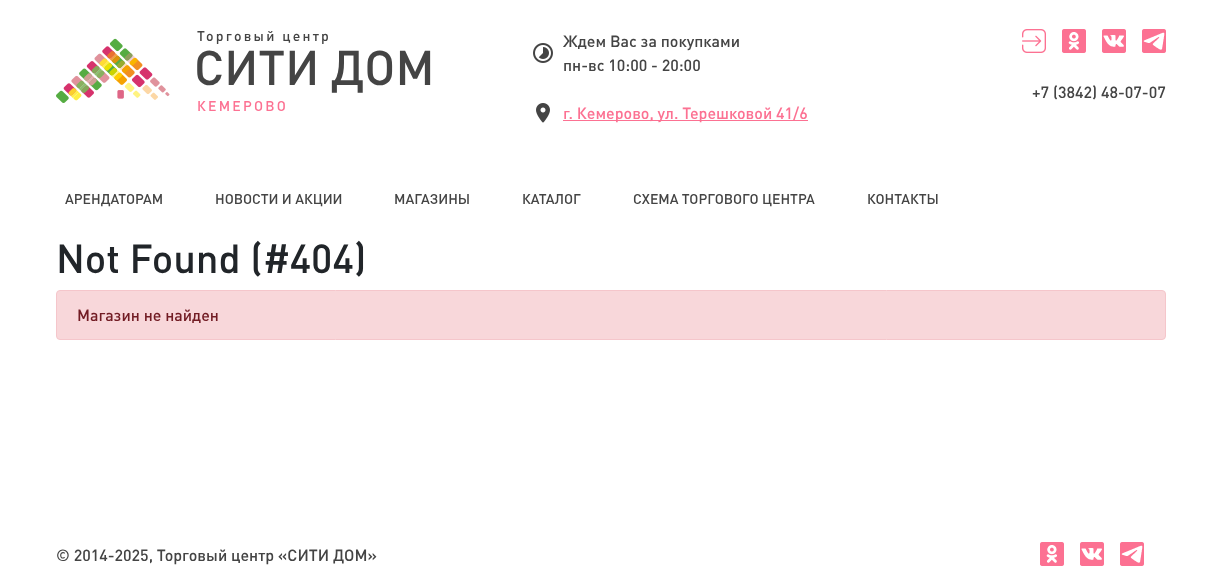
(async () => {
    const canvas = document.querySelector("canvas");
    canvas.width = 1222;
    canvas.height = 587;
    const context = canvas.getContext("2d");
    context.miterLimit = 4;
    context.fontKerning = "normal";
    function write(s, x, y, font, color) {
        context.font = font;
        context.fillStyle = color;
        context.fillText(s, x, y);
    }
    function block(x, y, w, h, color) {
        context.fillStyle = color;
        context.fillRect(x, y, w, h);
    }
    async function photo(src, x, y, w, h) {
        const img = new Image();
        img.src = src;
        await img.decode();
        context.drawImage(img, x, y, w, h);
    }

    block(0, 0, 1222, 587, "rgb(255, 255, 255)");
    await photo("media/1.png", 56, 38, 114, 65);
    context.letterSpacing = "2.25px";
    write("Торговый центр", 197, 41, "500 14px DIN", "rgb(68, 68, 68)");
    context.letterSpacing = "0px";
    write("СИТИ ДОМ", 194, 85, "500 48px DIN", "rgb(68, 68, 68)");
    context.letterSpacing = "2.25px";
    write("КЕМЕРОВО", 197, 111, "500 14px DIN", "rgb(252, 113, 146)");
    await photo("media/2.png", 533, 43, 20, 20);
    context.letterSpacing = "0px";
    write("Ждем Вас за покупками", 563, 47, "500 16px DIN", "rgb(68, 68, 68)");
    write("пн-вс 10:00 - 20:00", 563, 71, "500 16px DIN", "rgb(68, 68, 68)");
    await photo("media/3.png", 536, 103, 14, 20);
    block(563, 120, 245, 1, "rgb(252, 113, 146)");
    write("г. Кемерово, ул. Терешковой 41/6", 563, 119, "500 16px DIN", "rgb(252, 113, 146)");
    await photo("media/4.png", 1022, 29, 24, 24);
    await photo("media/5.png", 1062, 29, 24, 24);
    await photo("media/6.png", 1102, 29, 24, 24);
    await photo("media/7.png", 1142, 29, 24, 24);
    write("+7 (3842) 48-07-07", 1032, 98, "500 16px DIN", "rgb(68, 68, 68)");
    write("АРЕНДАТОРАМ", 65, 204, "500 14px DIN", "rgb(68, 68, 68)");
    write("НОВОСТИ И АКЦИИ", 215, 204, "500 14px DIN", "rgb(68, 68, 68)");
    write("МАГАЗИНЫ", 394, 204, "500 14px DIN", "rgb(68, 68, 68)");
    write("КАТАЛОГ", 522, 204, "500 14px DIN", "rgb(68, 68, 68)");
    write("СХЕМА ТОРГОВОГО ЦЕНТРА", 633, 204, "500 14px DIN", "rgb(68, 68, 68)");
    write("КОНТАКТЫ", 867, 204, "500 14px DIN", "rgb(68, 68, 68)");
    write("Not Found (#404)", 56, 273, "500 40px DIN", "rgb(33, 37, 41)");
    context.fillStyle = "rgb(248, 215, 218)";
    context.beginPath();
    context.roundRect(56.5, 290.5, 1109, 49, 3.5);
    context.fill();
    context.strokeStyle = "rgb(245, 198, 203)";
    context.stroke();
    write("Магазин не найден", 77, 321, "500 16px DIN", "rgb(114, 28, 36)");
    write("© 2014-2025, Торговый центр «СИТИ ДОМ»", 56, 561, "500 16px DIN", "rgb(68, 68, 68)");
    await photo("media/5.png", 1040, 542, 24, 24);
    await photo("media/6.png", 1080, 542, 24, 24);
    await photo("media/7.png", 1120, 542, 24, 24);
})();
